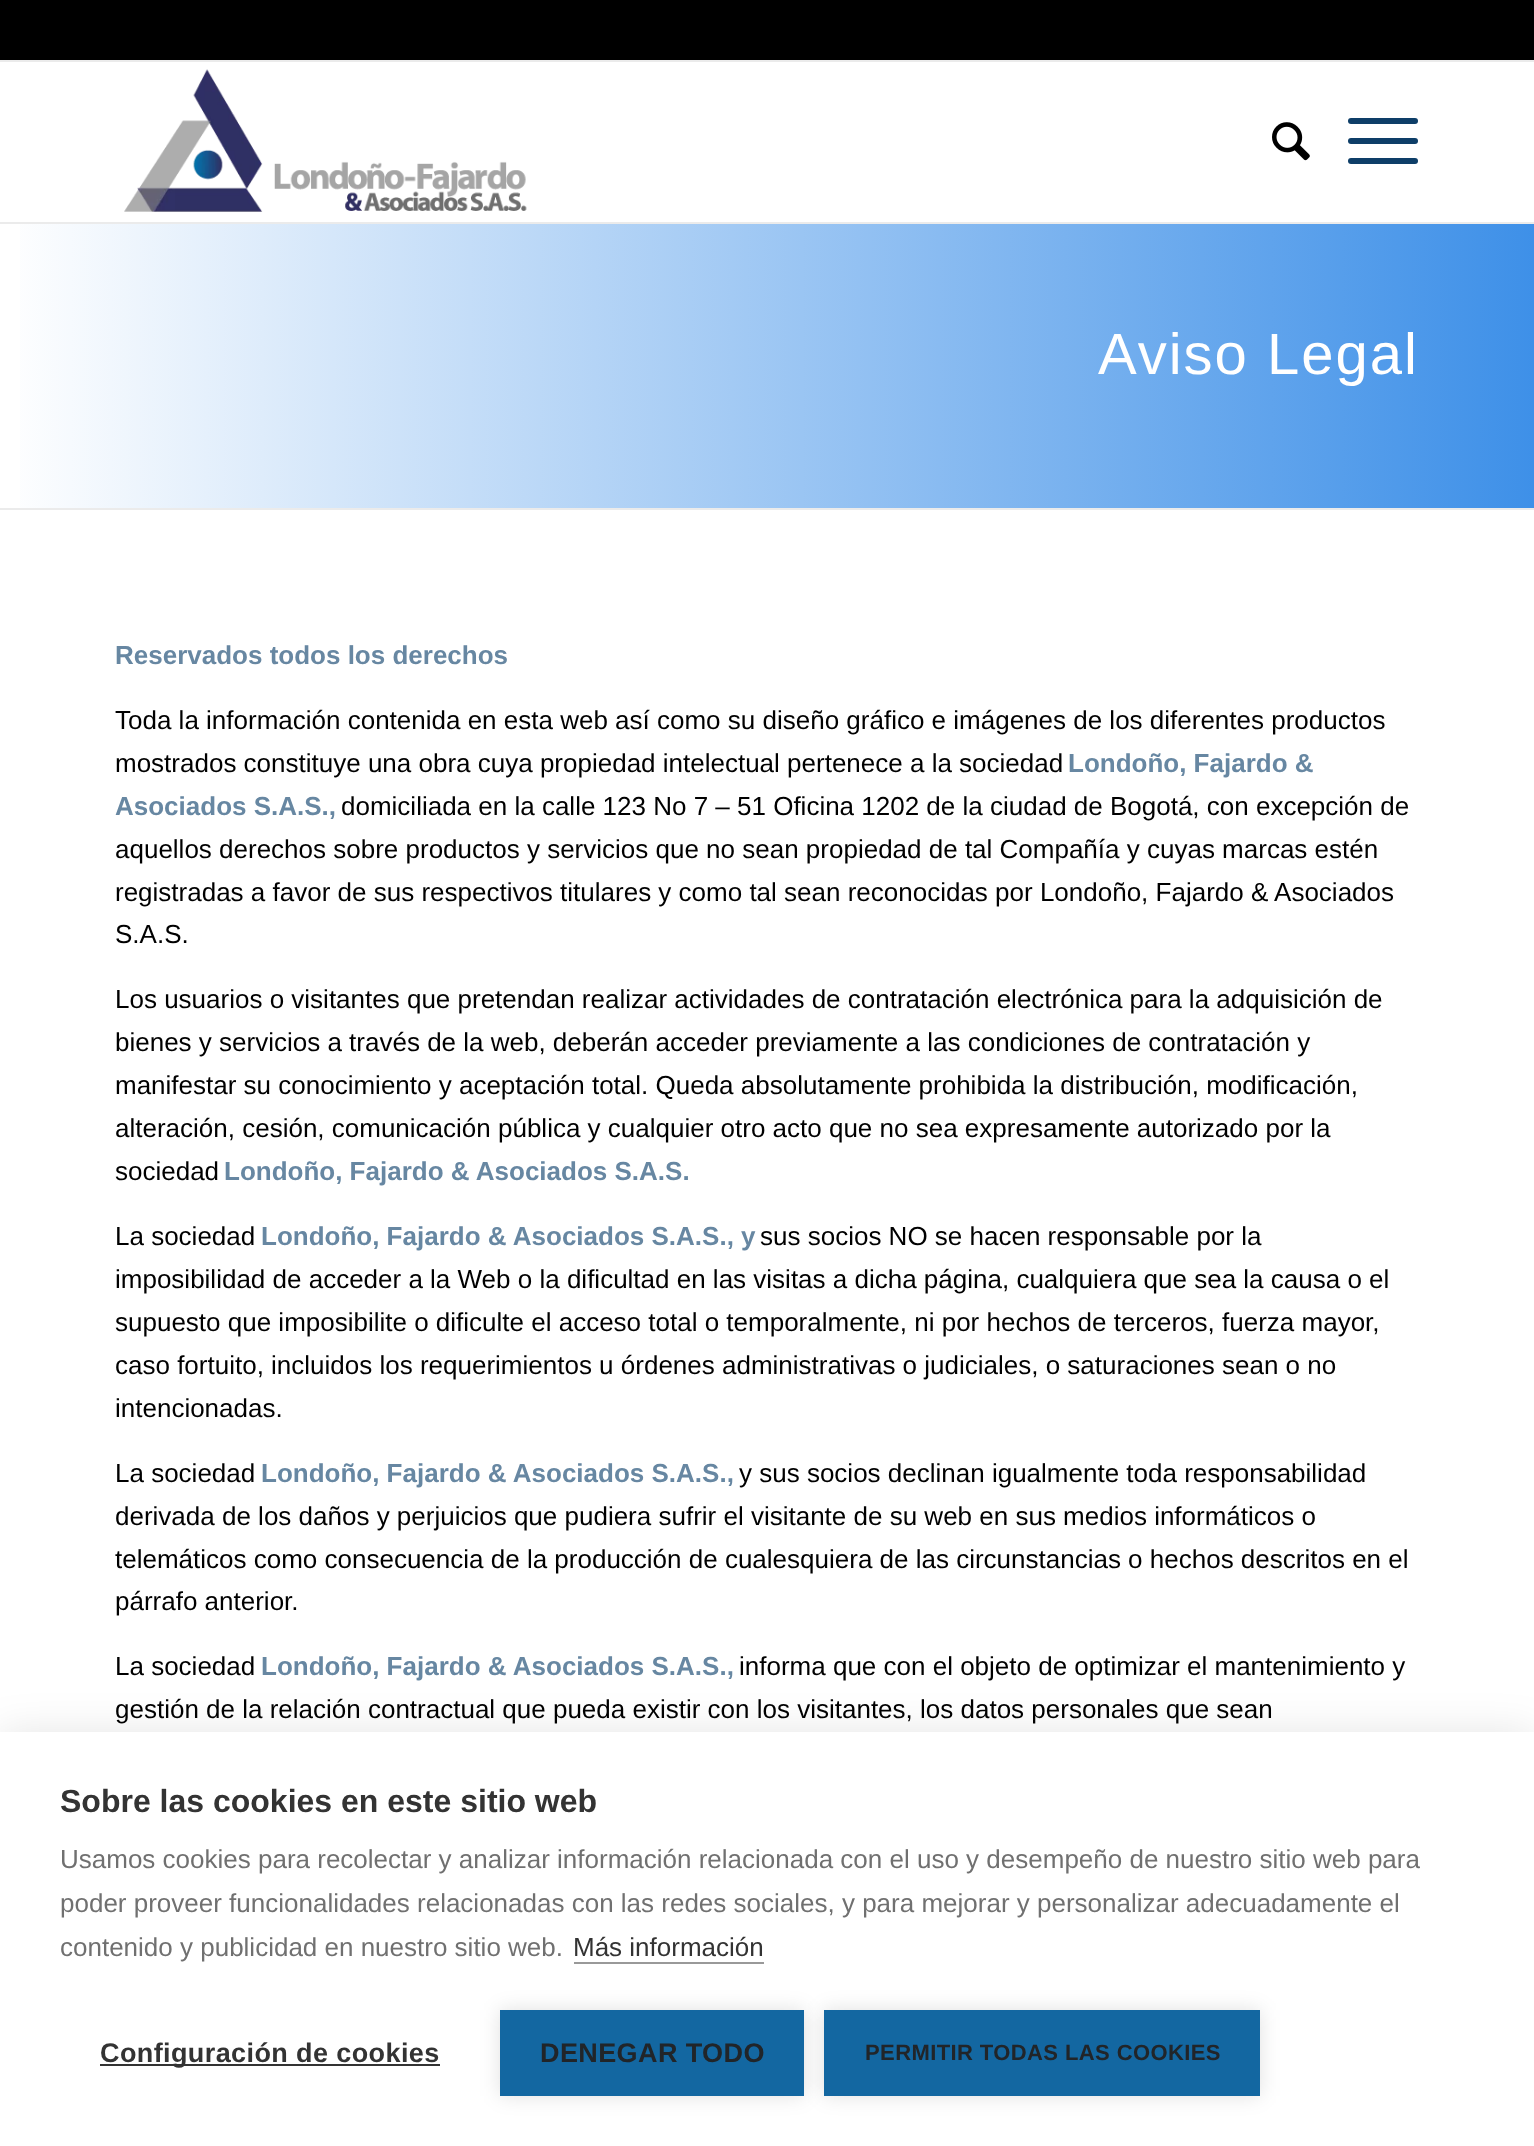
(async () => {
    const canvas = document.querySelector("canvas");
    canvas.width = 1534;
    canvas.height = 2146;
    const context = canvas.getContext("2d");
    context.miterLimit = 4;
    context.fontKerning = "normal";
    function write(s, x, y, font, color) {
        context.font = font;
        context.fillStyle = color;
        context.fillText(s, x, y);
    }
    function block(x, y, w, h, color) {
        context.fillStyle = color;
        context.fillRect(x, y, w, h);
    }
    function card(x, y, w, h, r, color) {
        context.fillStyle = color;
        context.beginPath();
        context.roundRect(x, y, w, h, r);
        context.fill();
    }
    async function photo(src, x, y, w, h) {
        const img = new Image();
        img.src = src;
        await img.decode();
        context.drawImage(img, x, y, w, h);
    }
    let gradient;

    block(0, 0, 1534, 2146, "rgb(255, 255, 255)");
    block(0, 0, 1534, 60, "rgb(0, 0, 0)");
    block(0, 60, 1534, 2, "rgb(235, 235, 235)");
    block(0, 222, 1534, 2, "rgb(235, 235, 235)");
    await photo("media/1.png", 124, 69, 403, 143);
    await photo("media/2.png", 1272, 122, 38, 39);
    card(1348, 138, 70, 6, 3, "rgb(14, 62, 104)");
    card(1348, 118, 70, 6, 3, "rgb(14, 62, 104)");
    card(1348, 158, 70, 6, 3, "rgb(14, 62, 104)");
    gradient = context.createLinearGradient(0, 366, 1534, 366);
    gradient.addColorStop(0, "rgb(255, 255, 255)");
    gradient.addColorStop(1, "rgb(62, 144, 232)");
    context.fillStyle = gradient;
    context.fillRect(20, 224, 1514, 284);
    context.letterSpacing = "2px";
    write("Aviso Legal", 1098, 374, "58px Liberation Sans", "rgb(255, 255, 255)");
    block(0, 508, 1534, 2, "rgb(235, 235, 235)");
    context.letterSpacing = "0px";
    write("Reservados todos los derechos", 115, 664, "bold 26px Liberation Sans", "rgb(103, 135, 162)");
    write("Toda la información contenida en esta web así como su diseño gráfico e imágenes de los diferentes productos", 115, 729, "26px Liberation Sans", "rgb(0, 0, 0)");
    write("mostrados constituye una obra cuya propiedad intelectual pertenece a la sociedad", 115, 772, "26px Liberation Sans", "rgb(0, 0, 0)");
    write("Londoño, Fajardo &", 1068, 772, "bold 26px Liberation Sans", "rgb(103, 135, 162)");
    write("Asociados S.A.S.,", 115, 815, "bold 26px Liberation Sans", "rgb(103, 135, 162)");
    write("domiciliada en la calle 123 No 7 – 51 Oficina 1202 de la ciudad de Bogotá, con excepción de", 341, 815, "26px Liberation Sans", "rgb(0, 0, 0)");
    write("aquellos derechos sobre productos y servicios que no sean propiedad de tal Compañía y cuyas marcas estén", 115, 858, "26px Liberation Sans", "rgb(0, 0, 0)");
    write("registradas a favor de sus respectivos titulares y como tal sean reconocidas por Londoño, Fajardo & Asociados", 115, 901, "26px Liberation Sans", "rgb(0, 0, 0)");
    write("S.A.S.", 115, 943, "26px Liberation Sans", "rgb(0, 0, 0)");
    write("Los usuarios o visitantes que pretendan realizar actividades de contratación electrónica para la adquisición de", 115, 1008, "26px Liberation Sans", "rgb(0, 0, 0)");
    write("bienes y servicios a través de la web, deberán acceder previamente a las condiciones de contratación y", 115, 1051, "26px Liberation Sans", "rgb(0, 0, 0)");
    write("manifestar su conocimiento y aceptación total. Queda absolutamente prohibida la distribución, modificación,", 115, 1094, "26px Liberation Sans", "rgb(0, 0, 0)");
    write("alteración, cesión, comunicación pública y cualquier otro acto que no sea expresamente autorizado por la", 115, 1137, "26px Liberation Sans", "rgb(0, 0, 0)");
    write("sociedad", 115, 1180, "26px Liberation Sans", "rgb(0, 0, 0)");
    write("Londoño, Fajardo & Asociados S.A.S.", 224, 1180, "bold 26px Liberation Sans", "rgb(103, 135, 162)");
    write("La sociedad", 115, 1245, "26px Liberation Sans", "rgb(0, 0, 0)");
    write("Londoño, Fajardo & Asociados S.A.S., y", 261, 1245, "bold 26px Liberation Sans", "rgb(103, 135, 162)");
    write("sus socios NO se hacen responsable por la", 760, 1245, "26px Liberation Sans", "rgb(0, 0, 0)");
    write("imposibilidad de acceder a la Web o la dificultad en las visitas a dicha página, cualquiera que sea la causa o el", 115, 1288, "26px Liberation Sans", "rgb(0, 0, 0)");
    write("supuesto que imposibilite o dificulte el acceso total o temporalmente, ni por hechos de terceros, fuerza mayor,", 115, 1331, "26px Liberation Sans", "rgb(0, 0, 0)");
    write("caso fortuito, incluidos los requerimientos u órdenes administrativas o judiciales, o saturaciones sean o no", 115, 1374, "26px Liberation Sans", "rgb(0, 0, 0)");
    write("intencionadas.", 115, 1417, "26px Liberation Sans", "rgb(0, 0, 0)");
    write("La sociedad", 115, 1482, "26px Liberation Sans", "rgb(0, 0, 0)");
    write("Londoño, Fajardo & Asociados S.A.S.,", 261, 1482, "bold 26px Liberation Sans", "rgb(103, 135, 162)");
    write("y sus socios declinan igualmente toda responsabilidad", 739, 1482, "26px Liberation Sans", "rgb(0, 0, 0)");
    write("derivada de los daños y perjuicios que pudiera sufrir el visitante de su web en sus medios informáticos o", 115, 1525, "26px Liberation Sans", "rgb(0, 0, 0)");
    write("telemáticos como consecuencia de la producción de cualesquiera de las circunstancias o hechos descritos en el", 115, 1568, "26px Liberation Sans", "rgb(0, 0, 0)");
    write("párrafo anterior.", 115, 1610, "26px Liberation Sans", "rgb(0, 0, 0)");
    write("La sociedad", 115, 1675, "26px Liberation Sans", "rgb(0, 0, 0)");
    write("Londoño, Fajardo & Asociados S.A.S.,", 261, 1675, "bold 26px Liberation Sans", "rgb(103, 135, 162)");
    write("informa que con el objeto de optimizar el mantenimiento y", 739, 1675, "26px Liberation Sans", "rgb(0, 0, 0)");
    write("gestión de la relación contractual que pueda existir con los visitantes, los datos personales que sean", 115, 1718, "26px Liberation Sans", "rgb(0, 0, 0)");
    context.fillStyle = "rgba(0, 0, 0, 0.1)";
    context.filter = "blur(20px)";
    context.beginPath();
    context.rect(0, 1732, 1534, 414);
    context.fill();
    context.filter = "none";
    block(0, 1732, 1534, 414, "rgb(255, 255, 255)");
    write("Sobre las cookies en este sitio web", 60, 1812, "bold 32px Liberation Sans", "rgb(51, 51, 51)");
    write("Usamos cookies para recolectar y analizar información relacionada con el uso y desempeño de nuestro sitio web para", 60, 1868, "26px Liberation Sans", "rgb(112, 112, 112)");
    write("poder proveer funcionalidades relacionadas con las redes sociales, y para mejorar y personalizar adecuadamente el", 60, 1912, "26px Liberation Sans", "rgb(112, 112, 112)");
    write("contenido y publicidad en nuestro sitio web.", 60, 1956, "26px Liberation Sans", "rgb(112, 112, 112)");
    write("Más información", 573, 1956, "26px Liberation Sans", "rgb(51, 51, 51)");
    block(574, 1962, 190, 2, "rgb(153, 153, 153)");
    block(100, 2064, 340, 2, "rgb(51, 51, 51)");
    context.letterSpacing = "0.4px";
    write("Configuración de cookies", 100, 2062, "bold 27px Liberation Sans", "rgb(51, 51, 51)");
    context.fillStyle = "rgba(0, 0, 0, 0.12)";
    context.filter = "blur(10px)";
    context.beginPath();
    context.rect(500, 2010, 304, 86);
    context.fill();
    context.filter = "none";
    block(500, 2010, 304, 86, "rgb(19, 103, 161)");
    write("DENEGAR TODO", 540, 2062, "bold 27px Liberation Sans", "rgb(33, 37, 41)");
    context.fillStyle = "rgba(0, 0, 0, 0.12)";
    context.filter = "blur(10px)";
    context.beginPath();
    context.rect(824, 2010, 436, 86);
    context.fill();
    context.filter = "none";
    block(824, 2010, 436, 86, "rgb(19, 103, 161)");
    write("PERMITIR TODAS LAS COOKIES", 865, 2060, "bold 22px Liberation Sans", "rgb(33, 37, 41)");
})();
